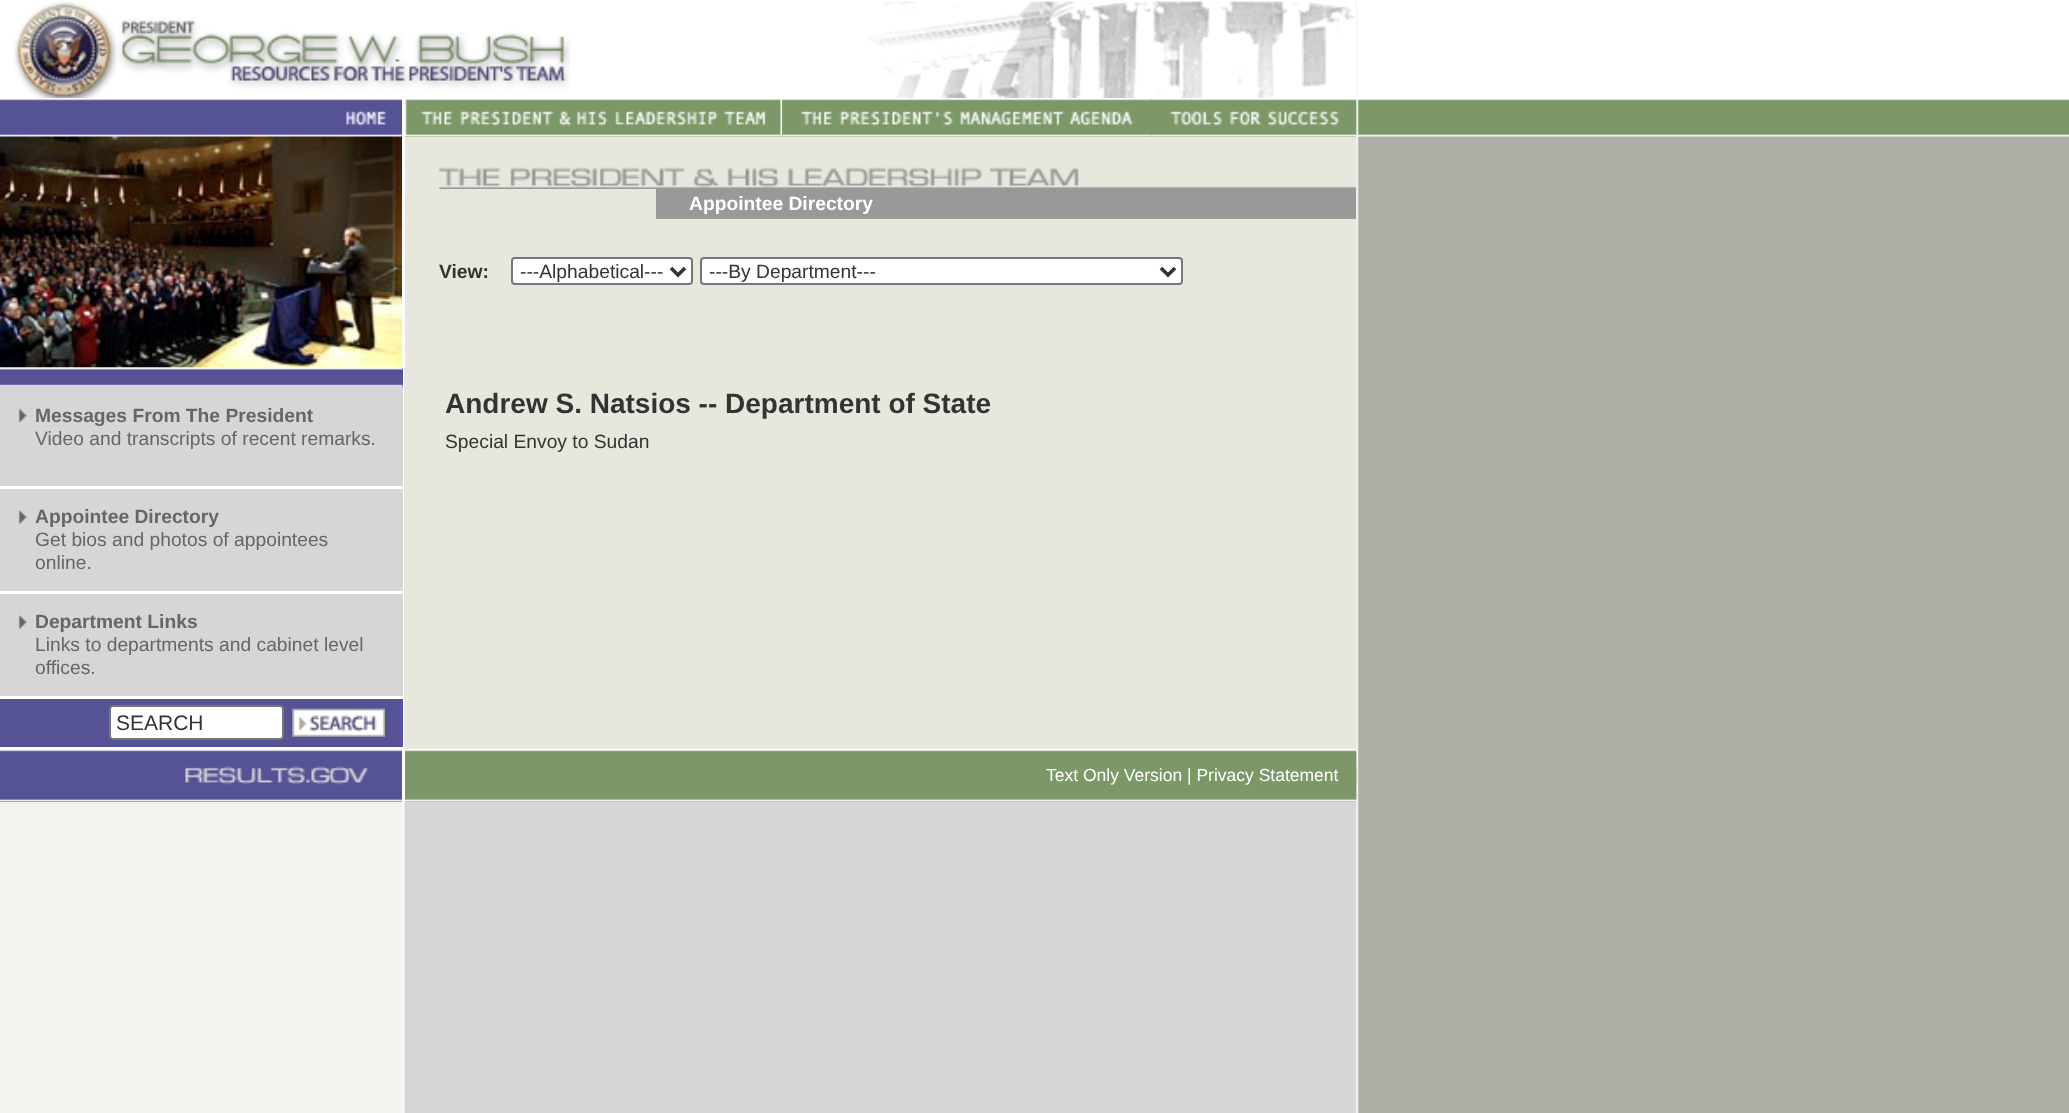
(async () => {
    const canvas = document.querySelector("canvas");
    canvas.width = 2069;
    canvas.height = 1113;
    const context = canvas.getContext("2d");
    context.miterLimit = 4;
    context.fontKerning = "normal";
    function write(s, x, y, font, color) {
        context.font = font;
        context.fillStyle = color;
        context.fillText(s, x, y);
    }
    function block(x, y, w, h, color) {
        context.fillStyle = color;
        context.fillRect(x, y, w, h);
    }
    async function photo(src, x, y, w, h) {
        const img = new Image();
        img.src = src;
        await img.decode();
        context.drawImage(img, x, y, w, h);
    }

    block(0, 0, 2069, 1113, "rgb(243, 243, 238)");
    await photo("media/1.png", 402, 0, 1667, 1113);
    block(0, 0, 868, 98, "rgb(255, 255, 255)");
    await photo("media/2.png", 13, 1, 558, 97);
    await photo("media/3.png", 868, 0, 489, 98);
    await photo("media/4.png", 0, 98, 402, 39);
    block(404, 137, 952, 612, "rgb(231, 231, 222)");
    await photo("media/9.png", 0, 136, 402, 232);
    block(0, 368, 403, 19, "rgb(86, 82, 150)");
    await photo("media/10.png", 0, 367, 403, 20);
    block(402, 98, 3, 270, "rgb(255, 255, 255)");
    block(405, 98, 951, 39, "rgb(125, 152, 104)");
    await photo("media/5.png", 405, 98, 378, 39);
    await photo("media/6.png", 782, 98, 370, 39);
    await photo("media/7.png", 1151, 98, 206, 39);
    await photo("media/8.png", 438, 167, 919, 22);
    block(656, 189, 700, 30, "rgb(153, 153, 153)");
    write("Appointee Directory", 689, 210, "bold 19.25px Liberation Sans", "rgb(255, 255, 255)");
    write("View:", 439, 278, "bold 19.25px Liberation Sans", "rgb(51, 51, 51)");
    context.fillStyle = "rgb(255, 255, 255)";
    context.beginPath();
    context.roundRect(512, 258, 180, 26, 3);
    context.fill();
    context.strokeStyle = "rgb(118, 118, 118)";
    context.lineWidth = 2;
    context.stroke();
    context.beginPath();
    context.moveTo(671, 268);
    context.lineTo(678, 275);
    context.lineTo(685, 268);
    context.strokeStyle = "rgb(51, 51, 51)";
    context.lineWidth = 3.5;
    context.stroke();
    write("---Alphabetical---", 520, 278, "19.25px Liberation Sans", "rgb(51, 51, 51)");
    context.fillStyle = "rgb(255, 255, 255)";
    context.beginPath();
    context.roundRect(701, 258, 481, 26, 3);
    context.fill();
    context.strokeStyle = "rgb(118, 118, 118)";
    context.lineWidth = 2;
    context.stroke();
    context.beginPath();
    context.moveTo(1161, 268);
    context.lineTo(1168, 275);
    context.lineTo(1175, 268);
    context.strokeStyle = "rgb(51, 51, 51)";
    context.lineWidth = 3.5;
    context.stroke();
    write("---By Department---", 709, 278, "19.25px Liberation Sans", "rgb(51, 51, 51)");
    write("Andrew S. Natsios -- Department of State", 445, 413, "bold 28px Liberation Sans", "rgb(51, 51, 51)");
    write("Special Envoy to Sudan", 445, 448, "19.25px Liberation Sans", "rgb(51, 51, 51)");
    block(0, 387, 403, 99, "rgb(214, 214, 214)");
    await photo("media/11.png", 18, 409, 9, 14);
    write("Messages From The President", 35, 422, "bold 19.25px Liberation Sans", "rgb(102, 102, 102)");
    write("Video and transcripts of recent remarks.", 35, 445, "19.25px Liberation Sans", "rgb(102, 102, 102)");
    block(0, 486, 403, 3, "rgb(255, 255, 255)");
    block(0, 489, 403, 102, "rgb(214, 214, 214)");
    await photo("media/12.png", 18, 510, 9, 14);
    write("Appointee Directory", 35, 523, "bold 19.25px Liberation Sans", "rgb(102, 102, 102)");
    write("Get bios and photos of appointees", 35, 546, "19.25px Liberation Sans", "rgb(102, 102, 102)");
    write("online.", 35, 569, "19.25px Liberation Sans", "rgb(102, 102, 102)");
    block(0, 591, 403, 3, "rgb(255, 255, 255)");
    block(0, 594, 403, 102, "rgb(214, 214, 214)");
    await photo("media/12.png", 18, 615, 9, 14);
    write("Department Links", 35, 628, "bold 19.25px Liberation Sans", "rgb(102, 102, 102)");
    write("Links to departments and cabinet level", 35, 651, "19.25px Liberation Sans", "rgb(102, 102, 102)");
    write("offices.", 35, 674, "19.25px Liberation Sans", "rgb(102, 102, 102)");
    block(0, 696, 403, 3, "rgb(255, 255, 255)");
    block(0, 699, 403, 48, "rgb(86, 82, 150)");
    context.fillStyle = "rgb(255, 255, 255)";
    context.beginPath();
    context.roundRect(110, 706, 173, 33, 3);
    context.fill();
    context.strokeStyle = "rgb(118, 118, 118)";
    context.lineWidth = 2;
    context.stroke();
    write("SEARCH", 116, 730, "21px Liberation Sans", "rgb(51, 51, 51)");
    await photo("media/13.png", 292, 708, 93, 29);
    block(0, 747, 403, 2, "rgb(255, 255, 255)");
    block(403, 368, 1, 381, "rgb(255, 255, 255)");
    block(0, 801, 402, 1, "rgb(86, 82, 150)");
    await photo("media/14.png", 0, 749, 402, 53);
    block(402, 749, 3, 53, "rgb(255, 255, 255)");
    block(405, 801, 951, 1, "rgb(125, 152, 104)");
    await photo("media/15.png", 405, 749, 952, 53);
    write("Text Only Version | Privacy Statement", 1046, 781, "17.5px Liberation Sans", "rgb(255, 255, 255)");
    await photo("media/16.png", 1356, 766, 1, 18);
})();
